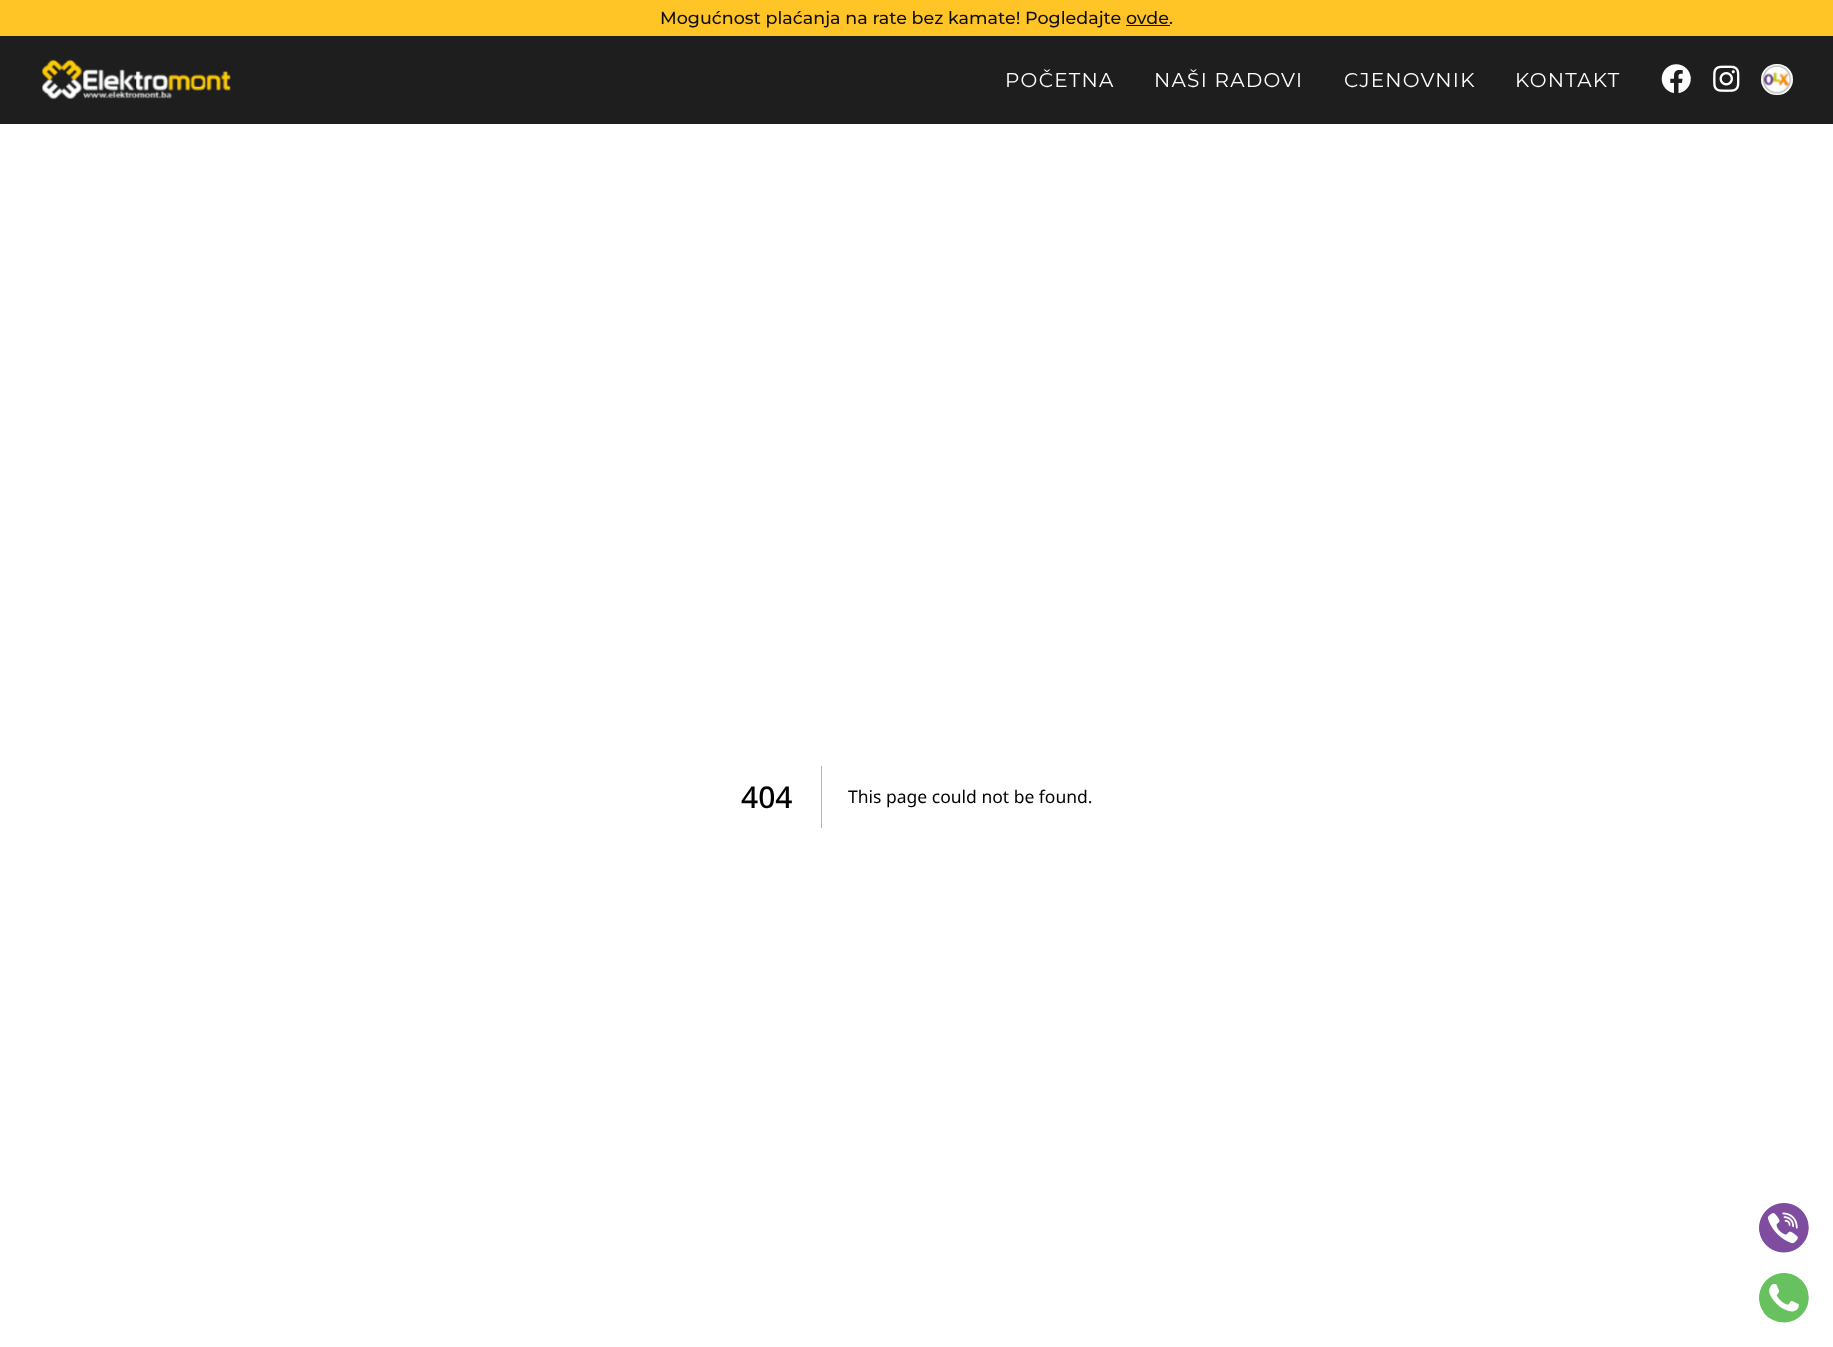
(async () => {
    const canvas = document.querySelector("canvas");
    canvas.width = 1833;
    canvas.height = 1347;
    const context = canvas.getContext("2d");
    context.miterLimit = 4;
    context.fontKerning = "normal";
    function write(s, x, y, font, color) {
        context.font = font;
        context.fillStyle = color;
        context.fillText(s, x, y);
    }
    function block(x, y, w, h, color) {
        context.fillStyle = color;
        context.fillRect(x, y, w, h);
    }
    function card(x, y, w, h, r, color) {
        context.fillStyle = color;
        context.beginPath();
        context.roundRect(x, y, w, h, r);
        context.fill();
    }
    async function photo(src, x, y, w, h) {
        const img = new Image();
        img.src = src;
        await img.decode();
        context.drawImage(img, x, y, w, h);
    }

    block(0, 0, 1833, 1347, "rgb(255, 255, 255)");
    block(0, 36, 1833, 88, "rgb(30, 30, 30)");
    block(0, 0, 1833, 36, "rgb(255, 197, 39)");
    write("Mogućnost plaćanja na rate bez kamate! Pogledajte ovde.", 660, 24, "500 17.5px Montserrat", "rgb(15, 15, 15)");
    block(1126, 25, 44, 1, "rgb(15, 15, 15)");
    await photo("media/1.png", 42, 59, 189, 41);
    context.letterSpacing = "1.25px";
    write("POČETNA", 1005, 87, "20px Montserrat", "rgb(255, 255, 255)");
    write("NAŠI RADOVI", 1154, 87, "20px Montserrat", "rgb(255, 255, 255)");
    write("CJENOVNIK", 1344, 87, "20px Montserrat", "rgb(255, 255, 255)");
    write("KONTAKT", 1515, 87, "20px Montserrat", "rgb(255, 255, 255)");
    await photo("media/2.png", 1661, 64, 30, 29);
    await photo("media/3.png", 1713, 65, 27, 27);
    card(1761, 64, 32, 31, 15.5, "rgb(255, 255, 255)");
    await photo("media/4.png", 1762, 65, 30, 30);
    block(821, 766, 1, 62, "rgb(179, 179, 179)");
    context.letterSpacing = "0px";
    write("404", 741, 808, "500 30px Noto Sans", "rgb(0, 0, 0)");
    write("This page could not be found.", 848, 803, "17.5px Noto Sans", "rgb(0, 0, 0)");
    await photo("media/5.png", 1759, 1203, 50, 50);
    await photo("media/6.png", 1759, 1273, 50, 50);
})();
